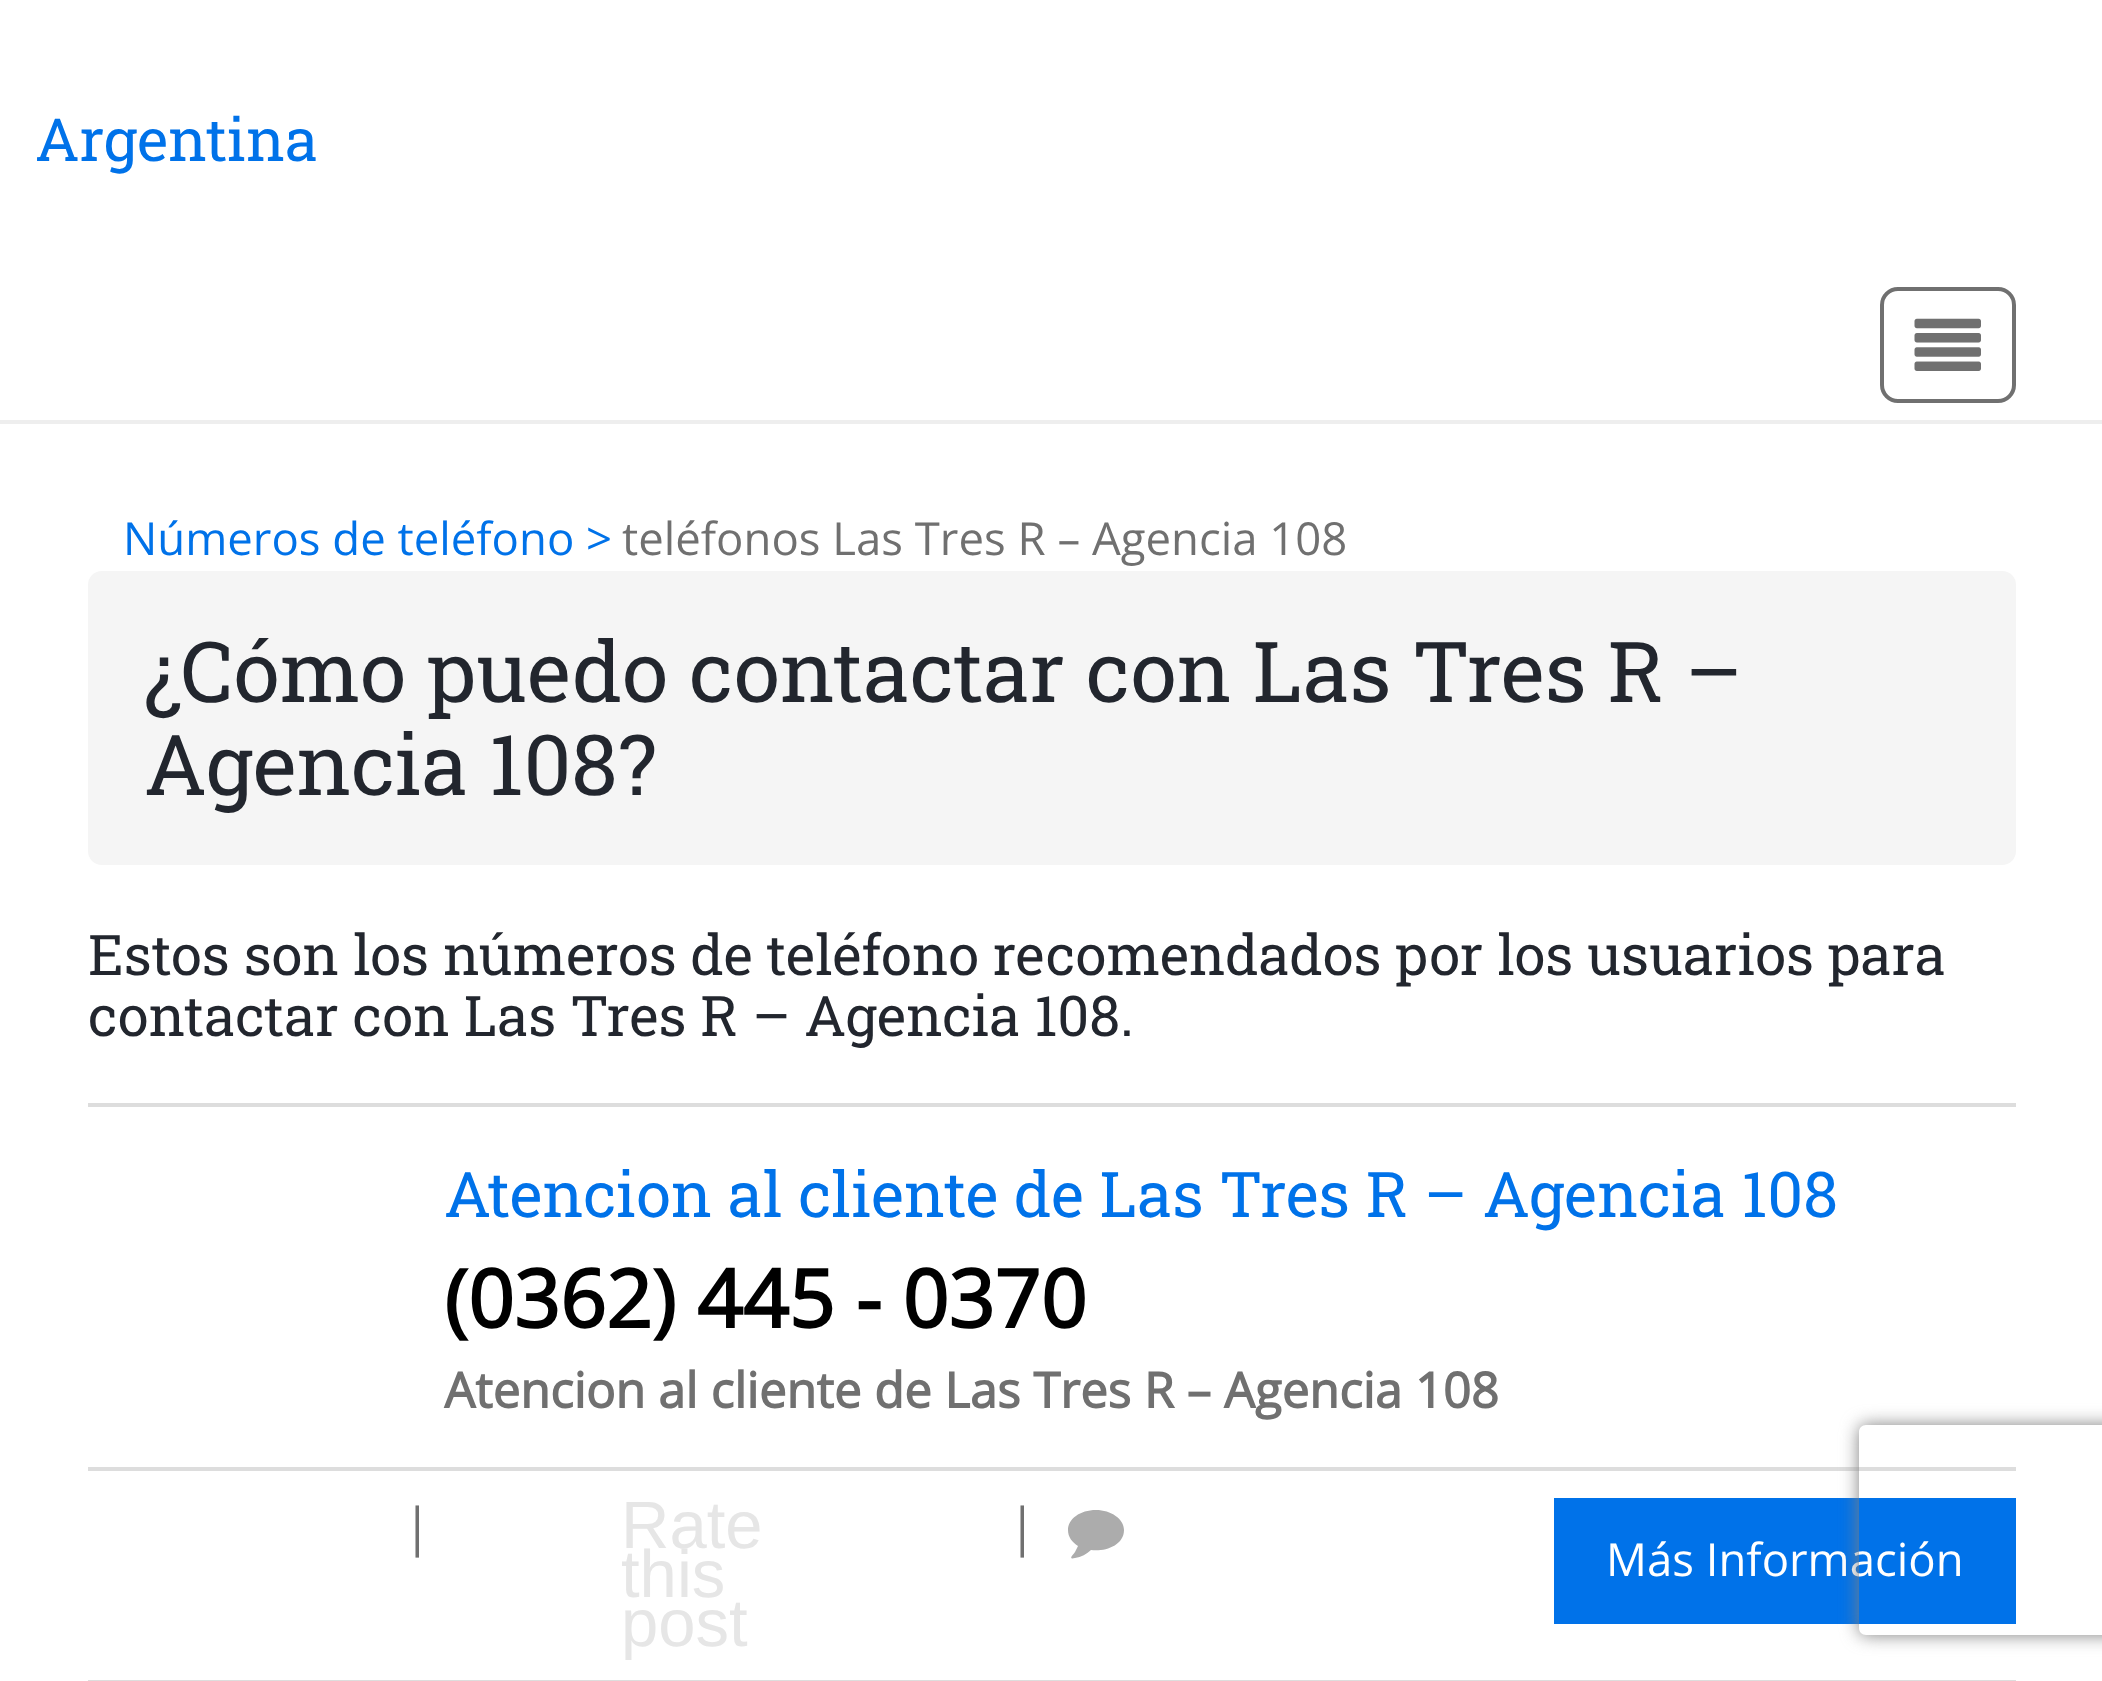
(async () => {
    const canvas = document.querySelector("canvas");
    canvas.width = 2102;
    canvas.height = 1681;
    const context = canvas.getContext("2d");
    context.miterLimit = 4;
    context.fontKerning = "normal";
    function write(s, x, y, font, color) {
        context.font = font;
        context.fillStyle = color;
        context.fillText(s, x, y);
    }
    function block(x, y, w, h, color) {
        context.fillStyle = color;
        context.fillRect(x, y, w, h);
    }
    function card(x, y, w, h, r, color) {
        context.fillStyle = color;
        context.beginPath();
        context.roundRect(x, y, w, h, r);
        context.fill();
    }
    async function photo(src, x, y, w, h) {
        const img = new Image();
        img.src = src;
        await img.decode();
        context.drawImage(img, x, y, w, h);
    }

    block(0, 0, 2102, 1681, "rgb(255, 255, 255)");
    block(0, 420, 2102, 4, "rgb(238, 238, 238)");
    write("Argentina", 35, 161, "59.5px Roboto Slab", "rgb(0, 114, 233)");
    context.beginPath();
    context.roundRect(1882, 289, 132, 112, 16);
    context.strokeStyle = "rgb(112, 112, 112)";
    context.lineWidth = 4;
    context.stroke();
    await photo("media/1.png", 1914, 318, 67, 53);
    write("Números de teléfono >", 123, 555, "45.5px Open Sans", "rgb(0, 114, 233)");
    write("teléfonos Las Tres R – Agencia 108", 622, 555, "45.5px Open Sans", "rgb(112, 112, 112)");
    card(88, 571, 1928, 294, 14, "rgb(245, 245, 245)");
    write("¿Cómo puedo contactar con Las Tres R –", 144, 702, "84px Roboto Slab", "rgb(34, 38, 46)");
    write("Agencia 108?", 144, 795, "84px Roboto Slab", "rgb(34, 38, 46)");
    block(88, 1103, 1928, 4, "rgb(221, 221, 221)");
    write("Estos son los números de teléfono recomendados por los usuarios para", 88, 975, "56px Roboto Slab", "rgb(34, 38, 46)");
    write("contactar con Las Tres R – Agencia 108.", 88, 1036, "56px Roboto Slab", "rgb(34, 38, 46)");
    write("Atencion al cliente de Las Tres R – Agencia 108", 444, 1217, "63px Roboto Slab", "rgb(0, 114, 233)");
    write("(0362) 445 - 0370", 444, 1328, "bold 80.5px Open Sans", "rgb(0, 0, 0)");
    write("Atencion al cliente de Las Tres R – Agencia 108", 444, 1408, "bold 49px Open Sans", "rgb(112, 112, 112)");
    block(88, 1467, 1928, 4, "rgb(221, 221, 221)");
    block(88, 1680, 1928, 1, "rgb(221, 221, 221)");
    write("|", 403, 1545, "52px Open Sans", "rgb(112, 112, 112)");
    write("Rate", 621, 1548, "67px Liberation Sans", "rgb(230, 230, 230)");
    write("this", 621, 1597, "67px Liberation Sans", "rgb(230, 230, 230)");
    write("post", 621, 1646, "67px Liberation Sans", "rgb(230, 230, 230)");
    write("|", 1008, 1545, "52px Open Sans", "rgb(112, 112, 112)");
    context.fillStyle = "rgb(172, 172, 172)";
    context.beginPath();
    context.moveTo(1124, 1530);
    context.bezierCurveTo(1124, 1519, 1111, 1510, 1096, 1510);
    context.bezierCurveTo(1080, 1510, 1068, 1519, 1068, 1530);
    context.bezierCurveTo(1068, 1537, 1072, 1542, 1078, 1546);
    context.lineTo(1075, 1552);
    context.bezierCurveTo(1074, 1554, 1067, 1560, 1075, 1558);
    context.bezierCurveTo(1081, 1557, 1087, 1554, 1091, 1550);
    context.bezierCurveTo(1104, 1552, 1124, 1546, 1124, 1530);
    context.closePath();
    context.fill();
    block(1554, 1498, 462, 126, "rgb(0, 114, 233)");
    write("Más Información", 1606, 1576, "45.5px Open Sans", "rgb(255, 255, 255)");
    context.save();
    context.beginPath();
    context.moveTo(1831, 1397);
    context.lineTo(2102, 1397);
    context.lineTo(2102, 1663);
    context.lineTo(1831, 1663);
    context.closePath();
    context.moveTo(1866, 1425);
    context.lineTo(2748, 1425);
    context.bezierCurveTo(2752, 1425, 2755, 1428, 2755, 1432);
    context.lineTo(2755, 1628);
    context.bezierCurveTo(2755, 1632, 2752, 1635, 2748, 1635);
    context.lineTo(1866, 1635);
    context.bezierCurveTo(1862, 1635, 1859, 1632, 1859, 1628);
    context.lineTo(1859, 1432);
    context.bezierCurveTo(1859, 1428, 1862, 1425, 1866, 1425);
    context.closePath();
    context.clip("evenodd");
    context.fillStyle = "rgb(128, 128, 128)";
    context.filter = "blur(9px)";
    context.beginPath();
    context.roundRect(1859, 1425, 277, 210, 7);
    context.fill();
    context.filter = "none";
    context.restore();
})();
